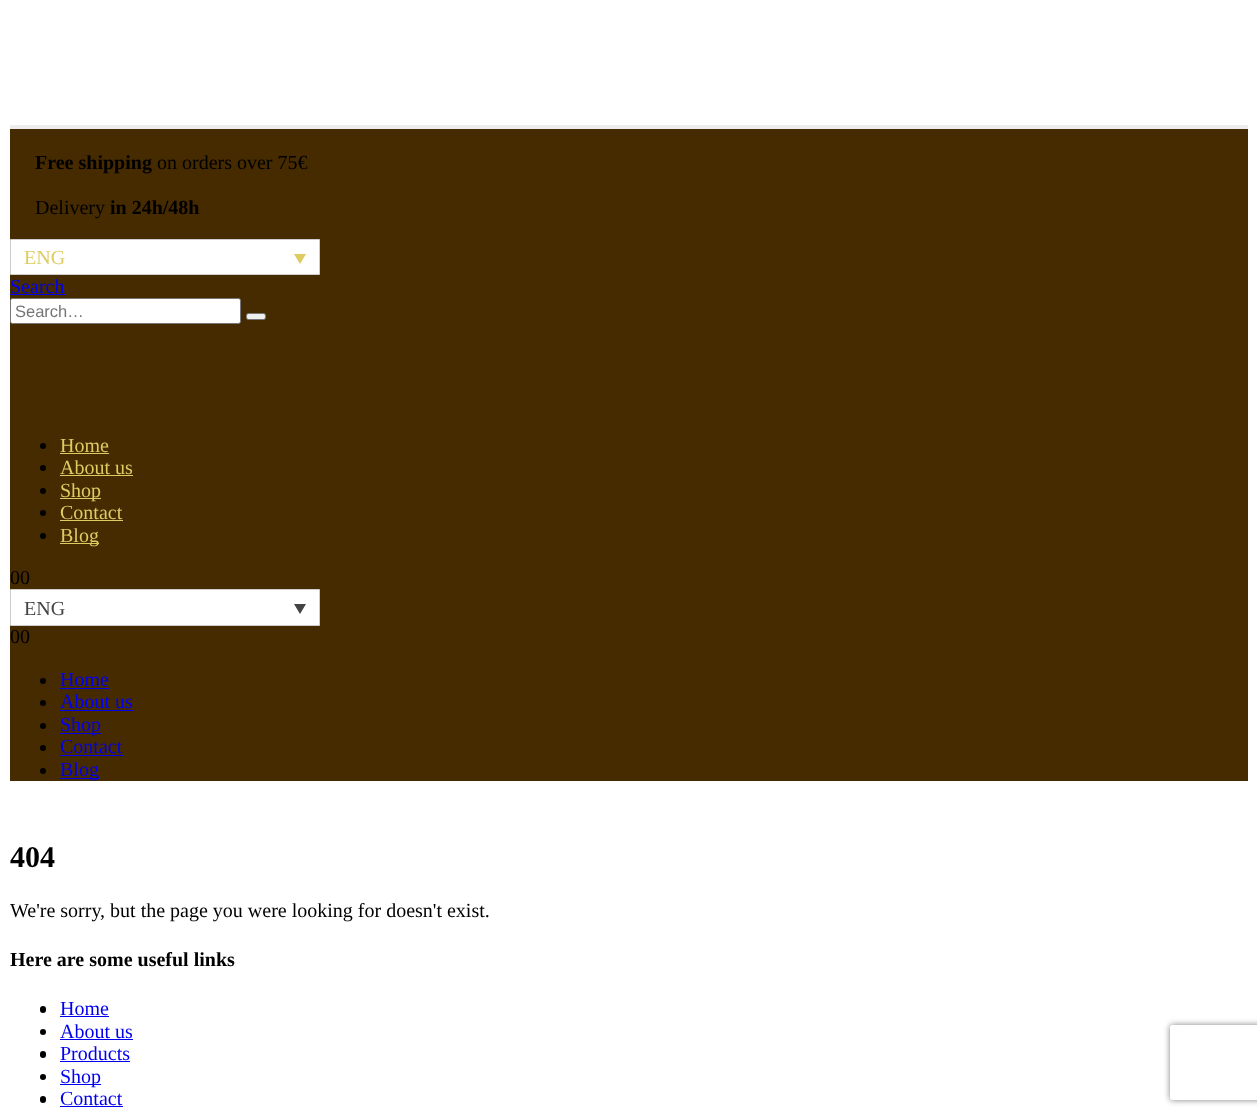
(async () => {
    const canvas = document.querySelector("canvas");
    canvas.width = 1257;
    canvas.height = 1117;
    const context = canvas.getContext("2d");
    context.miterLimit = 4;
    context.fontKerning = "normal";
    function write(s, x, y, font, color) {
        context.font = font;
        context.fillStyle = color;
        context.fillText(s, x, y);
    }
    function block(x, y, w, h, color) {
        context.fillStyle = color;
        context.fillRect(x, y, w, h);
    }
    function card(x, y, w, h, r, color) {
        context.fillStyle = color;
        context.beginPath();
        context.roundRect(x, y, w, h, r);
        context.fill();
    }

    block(0, 0, 1257, 1117, "rgb(255, 255, 255)");
    block(10, 129, 1238, 652, "rgb(70, 42, 0)");
    block(10, 125, 1238, 4, "rgb(237, 237, 237)");
    write("Free shipping", 35, 169, "bold 20px Liberation Serif", "rgb(0, 0, 0)");
    write("on orders over 75€", 157, 169, "20px Liberation Serif", "rgb(0, 0, 0)");
    write("Delivery", 35, 214, "20px Liberation Serif", "rgb(0, 0, 0)");
    write("in 24h/48h", 110, 214, "bold 20px Liberation Serif", "rgb(0, 0, 0)");
    context.fillStyle = "rgb(255, 255, 255)";
    context.beginPath();
    context.rect(10.5, 239.5, 309, 35);
    context.fill();
    context.strokeStyle = "rgb(205, 205, 205)";
    context.stroke();
    write("ENG", 24, 264, "20px Liberation Serif", "rgb(222, 204, 98)");
    context.beginPath();
    context.moveTo(294, 254);
    context.lineTo(306, 254);
    context.lineTo(300, 264);
    context.closePath();
    context.fill();
    write("Search", 10, 293, "20px Liberation Serif", "rgb(0, 0, 238)");
    block(10, 294, 55, 1, "rgb(0, 0, 238)");
    context.fillStyle = "rgb(255, 255, 255)";
    context.beginPath();
    context.roundRect(10.5, 298.5, 230, 25, 2);
    context.fill();
    context.strokeStyle = "rgb(118, 118, 118)";
    context.stroke();
    write("Search…", 15, 317, "16.5px Liberation Sans", "rgb(117, 117, 117)");
    context.fillStyle = "rgb(239, 239, 239)";
    context.beginPath();
    context.roundRect(246.5, 313.5, 19, 6, 2);
    context.fill();
    context.stroke();
    context.fillStyle = "rgb(0, 0, 0)";
    context.beginPath();
    context.arc(43, 446, 3, 0, Math.PI * 2);
    context.fill();
    write("Home", 60, 452, "20px Liberation Serif", "rgb(222, 204, 98)");
    block(60, 453, 49, 1, "rgb(222, 204, 98)");
    context.fillStyle = "rgb(0, 0, 0)";
    context.beginPath();
    context.arc(43, 468, 3, 0, Math.PI * 2);
    context.fill();
    write("About us", 60, 474, "20px Liberation Serif", "rgb(222, 204, 98)");
    block(60, 475, 73, 1, "rgb(222, 204, 98)");
    context.fillStyle = "rgb(0, 0, 0)";
    context.beginPath();
    context.arc(43, 491, 3, 0, Math.PI * 2);
    context.fill();
    block(60, 498, 41, 1, "rgb(222, 204, 98)");
    write("Shop", 60, 497, "20px Liberation Serif", "rgb(222, 204, 98)");
    context.fillStyle = "rgb(0, 0, 0)";
    context.beginPath();
    context.arc(43, 513, 3, 0, Math.PI * 2);
    context.fill();
    write("Contact", 60, 519, "20px Liberation Serif", "rgb(222, 204, 98)");
    block(60, 520, 63, 1, "rgb(222, 204, 98)");
    context.fillStyle = "rgb(0, 0, 0)";
    context.beginPath();
    context.arc(43, 536, 3, 0, Math.PI * 2);
    context.fill();
    block(60, 543, 39, 1, "rgb(222, 204, 98)");
    write("Blog", 60, 542, "20px Liberation Serif", "rgb(222, 204, 98)");
    write("00", 10, 584, "20px Liberation Serif", "rgb(0, 0, 0)");
    context.fillStyle = "rgb(255, 255, 255)";
    context.beginPath();
    context.rect(10.5, 589.5, 309, 36);
    context.fill();
    context.strokeStyle = "rgb(205, 205, 205)";
    context.stroke();
    write("ENG", 24, 615, "20px Liberation Serif", "rgb(68, 68, 68)");
    context.beginPath();
    context.moveTo(294, 604);
    context.lineTo(306, 604);
    context.lineTo(300, 614);
    context.closePath();
    context.fill();
    write("00", 10, 643, "20px Liberation Serif", "rgb(0, 0, 0)");
    context.beginPath();
    context.arc(43, 681, 3, 0, Math.PI * 2);
    context.fill();
    write("Home", 60, 686, "20px Liberation Serif", "rgb(0, 0, 238)");
    block(60, 688, 49, 1, "rgb(0, 0, 238)");
    context.fillStyle = "rgb(0, 0, 0)";
    context.beginPath();
    context.arc(43, 703, 3, 0, Math.PI * 2);
    context.fill();
    write("About us", 60, 708, "20px Liberation Serif", "rgb(0, 0, 238)");
    block(60, 710, 73, 1, "rgb(0, 0, 238)");
    context.fillStyle = "rgb(0, 0, 0)";
    context.beginPath();
    context.arc(43, 726, 3, 0, Math.PI * 2);
    context.fill();
    block(60, 733, 41, 1, "rgb(0, 0, 238)");
    write("Shop", 60, 731, "20px Liberation Serif", "rgb(0, 0, 238)");
    context.fillStyle = "rgb(0, 0, 0)";
    context.beginPath();
    context.arc(43, 748, 3, 0, Math.PI * 2);
    context.fill();
    write("Contact", 60, 753, "20px Liberation Serif", "rgb(0, 0, 238)");
    block(60, 755, 63, 1, "rgb(0, 0, 238)");
    context.fillStyle = "rgb(0, 0, 0)";
    context.beginPath();
    context.arc(43, 771, 3, 0, Math.PI * 2);
    context.fill();
    block(60, 778, 39, 1, "rgb(0, 0, 238)");
    write("Blog", 60, 776, "20px Liberation Serif", "rgb(0, 0, 238)");
    write("404", 10, 867, "bold 30px Liberation Serif", "rgb(0, 0, 0)");
    write("We're sorry, but the page you were looking for doesn't exist.", 10, 917, "20px Liberation Serif", "rgb(0, 0, 0)");
    write("Here are some useful links", 10, 966, "bold 20px Liberation Serif", "rgb(0, 0, 0)");
    card(40, 1006, 6, 7, 3, "rgb(0, 0, 0)");
    write("Home", 60, 1015, "20px Liberation Serif", "rgb(0, 0, 238)");
    block(60, 1016, 49, 1, "rgb(0, 0, 238)");
    context.fillStyle = "rgb(0, 0, 0)";
    context.beginPath();
    context.arc(43, 1032, 3, 0, Math.PI * 2);
    context.fill();
    write("About us", 60, 1038, "20px Liberation Serif", "rgb(0, 0, 238)");
    block(60, 1039, 73, 1, "rgb(0, 0, 238)");
    card(40, 1051, 6, 7, 3, "rgb(0, 0, 0)");
    write("Products", 60, 1060, "20px Liberation Serif", "rgb(0, 0, 238)");
    block(60, 1061, 70, 1, "rgb(0, 0, 238)");
    context.fillStyle = "rgb(0, 0, 0)";
    context.beginPath();
    context.arc(43, 1077, 3, 0, Math.PI * 2);
    context.fill();
    block(60, 1084, 41, 1, "rgb(0, 0, 238)");
    write("Shop", 60, 1083, "20px Liberation Serif", "rgb(0, 0, 238)");
    card(40, 1096, 6, 7, 3, "rgb(0, 0, 0)");
    write("Contact", 60, 1105, "20px Liberation Serif", "rgb(0, 0, 238)");
    block(60, 1106, 63, 1, "rgb(0, 0, 238)");
    context.save();
    context.beginPath();
    context.moveTo(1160, 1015);
    context.lineTo(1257, 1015);
    context.lineTo(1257, 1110);
    context.lineTo(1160, 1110);
    context.closePath();
    context.moveTo(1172.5, 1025);
    context.lineTo(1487.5, 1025);
    context.bezierCurveTo(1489, 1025, 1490, 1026, 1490, 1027.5);
    context.lineTo(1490, 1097.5);
    context.bezierCurveTo(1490, 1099, 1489, 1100, 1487.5, 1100);
    context.lineTo(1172.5, 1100);
    context.bezierCurveTo(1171, 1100, 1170, 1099, 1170, 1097.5);
    context.lineTo(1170, 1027.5);
    context.bezierCurveTo(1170, 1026, 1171, 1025, 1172.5, 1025);
    context.closePath();
    context.clip("evenodd");
    context.fillStyle = "rgb(128, 128, 128)";
    context.filter = "blur(3px)";
    context.beginPath();
    context.roundRect(1170, 1025, 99, 75, 2.5);
    context.fill();
    context.filter = "none";
    context.restore();
})();
